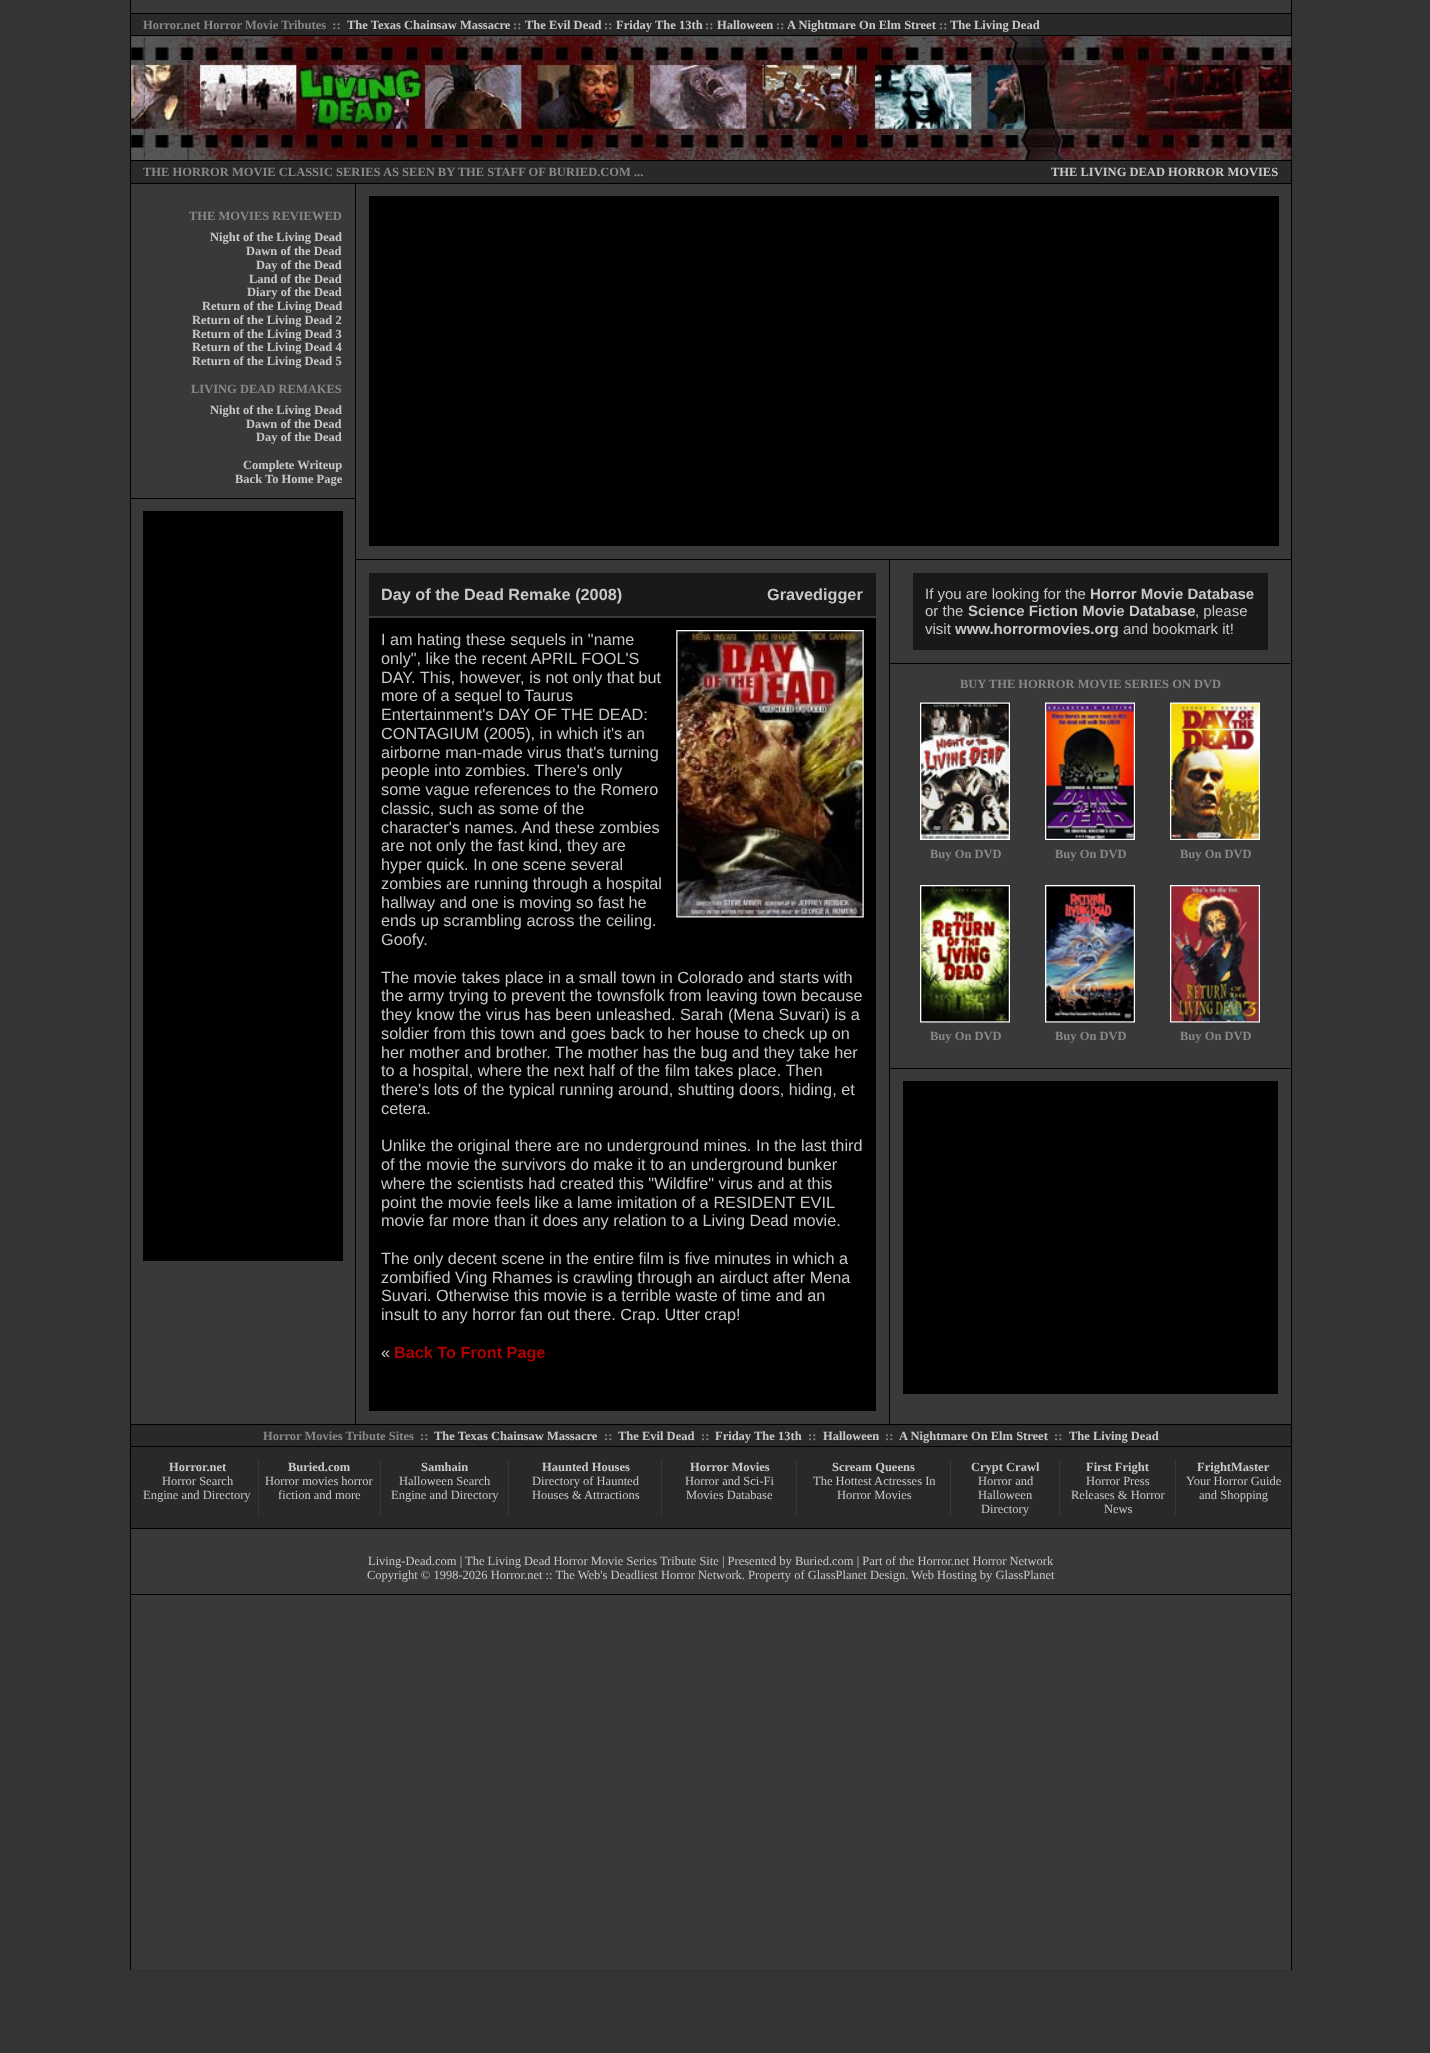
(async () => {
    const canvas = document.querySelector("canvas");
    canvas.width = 1430;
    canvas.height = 2053;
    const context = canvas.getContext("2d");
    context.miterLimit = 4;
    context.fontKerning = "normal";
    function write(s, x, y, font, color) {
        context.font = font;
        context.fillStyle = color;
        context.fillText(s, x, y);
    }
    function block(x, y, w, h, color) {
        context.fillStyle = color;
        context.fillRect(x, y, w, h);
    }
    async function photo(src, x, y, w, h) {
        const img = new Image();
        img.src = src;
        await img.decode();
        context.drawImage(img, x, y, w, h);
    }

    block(0, 0, 1430, 2053, "rgb(255, 255, 255)");
    await photo("media/1.png", 0, 0, 1430, 2053);
    block(130, 0, 1, 1970, "rgb(0, 0, 0)");
    block(131, 0, 1160, 1969, "rgb(57, 57, 57)");
    block(131, 13, 1160, 1, "rgb(0, 0, 0)");
    block(131, 14, 1160, 21, "rgb(41, 41, 41)");
    write("Horror.net Horror Movie Tributes  ::", 143, 29, "bold 12.5px Liberation Serif", "rgb(136, 136, 136)");
    write("The Texas Chainsaw Massacre", 347, 29, "bold 12.5px Liberation Serif", "rgb(200, 200, 200)");
    write("::", 513, 29, "bold 12.5px Liberation Serif", "rgb(136, 136, 136)");
    write("The Evil Dead", 525, 29, "bold 12.5px Liberation Serif", "rgb(200, 200, 200)");
    write("::", 604, 29, "bold 12.5px Liberation Serif", "rgb(136, 136, 136)");
    write("Friday The 13th", 616, 29, "bold 12.5px Liberation Serif", "rgb(200, 200, 200)");
    write("::", 705, 29, "bold 12.5px Liberation Serif", "rgb(136, 136, 136)");
    write("Halloween", 717, 29, "bold 12.5px Liberation Serif", "rgb(200, 200, 200)");
    write("::", 776, 29, "bold 12.5px Liberation Serif", "rgb(136, 136, 136)");
    write("A Nightmare On Elm Street", 787, 29, "bold 12.5px Liberation Serif", "rgb(200, 200, 200)");
    write("::", 939, 29, "bold 12.5px Liberation Serif", "rgb(136, 136, 136)");
    write("The Living Dead", 950, 29, "bold 12.5px Liberation Serif", "rgb(200, 200, 200)");
    block(131, 35, 1160, 1, "rgb(0, 0, 0)");
    block(1291, 0, 1, 1970, "rgb(0, 0, 0)");
    await photo("media/2.png", 131, 36, 1161, 124);
    block(131, 160, 1160, 1, "rgb(0, 0, 0)");
    block(131, 161, 1160, 22, "rgb(41, 41, 41)");
    write("THE HORROR MOVIE CLASSIC SERIES AS SEEN BY THE STAFF OF BURIED.COM ...", 143, 176, "bold 12.5px Liberation Serif", "rgb(136, 136, 136)");
    write("THE LIVING DEAD HORROR MOVIES", 1051, 176, "bold 12.5px Liberation Serif", "rgb(200, 200, 200)");
    block(131, 183, 1160, 1, "rgb(0, 0, 0)");
    write("THE MOVIES REVIEWED", 189, 220, "bold 12.5px Liberation Serif", "rgb(136, 136, 136)");
    write("Night of the Living Dead", 210, 241, "bold 12.5px Liberation Serif", "rgb(200, 200, 200)");
    write("Dawn of the Dead", 246, 255, "bold 12.5px Liberation Serif", "rgb(200, 200, 200)");
    write("Day of the Dead", 256, 269, "bold 12.5px Liberation Serif", "rgb(200, 200, 200)");
    write("Land of the Dead", 249, 283, "bold 12.5px Liberation Serif", "rgb(200, 200, 200)");
    write("Diary of the Dead", 247, 296, "bold 12.5px Liberation Serif", "rgb(200, 200, 200)");
    write("Return of the Living Dead", 202, 310, "bold 12.5px Liberation Serif", "rgb(200, 200, 200)");
    write("Return of the Living Dead 2", 192, 324, "bold 12.5px Liberation Serif", "rgb(200, 200, 200)");
    write("Return of the Living Dead 3", 192, 338, "bold 12.5px Liberation Serif", "rgb(200, 200, 200)");
    write("Return of the Living Dead 4", 192, 351, "bold 12.5px Liberation Serif", "rgb(200, 200, 200)");
    write("Return of the Living Dead 5", 192, 365, "bold 12.5px Liberation Serif", "rgb(200, 200, 200)");
    write("LIVING DEAD REMAKES", 191, 393, "bold 12.5px Liberation Serif", "rgb(136, 136, 136)");
    write("Night of the Living Dead", 210, 414, "bold 12.5px Liberation Serif", "rgb(200, 200, 200)");
    write("Dawn of the Dead", 246, 428, "bold 12.5px Liberation Serif", "rgb(200, 200, 200)");
    write("Day of the Dead", 256, 441, "bold 12.5px Liberation Serif", "rgb(200, 200, 200)");
    write("Complete Writeup", 243, 469, "bold 12.5px Liberation Serif", "rgb(200, 200, 200)");
    write("Back To Home Page", 235, 483, "bold 12.5px Liberation Serif", "rgb(200, 200, 200)");
    block(131, 498, 224, 1, "rgb(0, 0, 0)");
    block(143, 511, 200, 750, "rgb(0, 0, 0)");
    block(355, 184, 1, 1240, "rgb(0, 0, 0)");
    block(369, 196, 910, 350, "rgb(0, 0, 0)");
    block(356, 559, 935, 1, "rgb(0, 0, 0)");
    block(369, 573, 507, 43, "rgb(25, 25, 25)");
    write("Day of the Dead Remake (2008)", 381, 600, "bold 16.25px Liberation Sans", "rgb(200, 200, 200)");
    write("Gravedigger", 767, 600, "bold 16.25px Liberation Sans", "rgb(200, 200, 200)");
    block(369, 618, 507, 793, "rgb(0, 0, 0)");
    write("I am hating these sequels in \"name", 381, 645, "16.25px Liberation Sans", "rgb(200, 200, 200)");
    await photo("media/3.png", 676, 630, 188, 288);
    write("only\", like the recent APRIL FOOL'S", 381, 664, "16.25px Liberation Sans", "rgb(200, 200, 200)");
    write("DAY. This, however, is not only that but", 381, 683, "16.25px Liberation Sans", "rgb(200, 200, 200)");
    write("more of a sequel to Taurus", 381, 701, "16.25px Liberation Sans", "rgb(200, 200, 200)");
    write("Entertainment's DAY OF THE DEAD:", 381, 720, "16.25px Liberation Sans", "rgb(200, 200, 200)");
    write("CONTAGIUM (2005), in which it's an", 381, 739, "16.25px Liberation Sans", "rgb(200, 200, 200)");
    write("airborne man-made virus that's turning", 381, 758, "16.25px Liberation Sans", "rgb(200, 200, 200)");
    write("people into zombies. There's only", 381, 776, "16.25px Liberation Sans", "rgb(200, 200, 200)");
    write("some vague references to the Romero", 381, 795, "16.25px Liberation Sans", "rgb(200, 200, 200)");
    write("classic, such as some of the", 381, 814, "16.25px Liberation Sans", "rgb(200, 200, 200)");
    write("character's names. And these zombies", 381, 833, "16.25px Liberation Sans", "rgb(200, 200, 200)");
    write("are not only the fast kind, they are", 381, 851, "16.25px Liberation Sans", "rgb(200, 200, 200)");
    write("hyper quick. In one scene several", 381, 870, "16.25px Liberation Sans", "rgb(200, 200, 200)");
    write("zombies are running through a hospital", 381, 889, "16.25px Liberation Sans", "rgb(200, 200, 200)");
    write("hallway and one is moving so fast he", 381, 908, "16.25px Liberation Sans", "rgb(200, 200, 200)");
    write("ends up scrambling across the ceiling.", 381, 926, "16.25px Liberation Sans", "rgb(200, 200, 200)");
    write("Goofy.", 381, 945, "16.25px Liberation Sans", "rgb(200, 200, 200)");
    write("The movie takes place in a small town in Colorado and starts with", 381, 983, "16.25px Liberation Sans", "rgb(200, 200, 200)");
    write("the army trying to prevent the townsfolk from leaving town because", 381, 1001, "16.25px Liberation Sans", "rgb(200, 200, 200)");
    write("they know the virus has been unleashed. Sarah (Mena Suvari) is a", 381, 1020, "16.25px Liberation Sans", "rgb(200, 200, 200)");
    write("soldier from this town and goes back to her house to check up on", 381, 1039, "16.25px Liberation Sans", "rgb(200, 200, 200)");
    write("her mother and brother. The mother has the bug and they take her", 381, 1058, "16.25px Liberation Sans", "rgb(200, 200, 200)");
    write("to a hospital, where the next half of the film takes place. Then", 381, 1076, "16.25px Liberation Sans", "rgb(200, 200, 200)");
    write("there's lots of the typical running around, shutting doors, hiding, et", 381, 1095, "16.25px Liberation Sans", "rgb(200, 200, 200)");
    write("cetera.", 381, 1114, "16.25px Liberation Sans", "rgb(200, 200, 200)");
    write("Unlike the original there are no underground mines. In the last third", 381, 1151, "16.25px Liberation Sans", "rgb(200, 200, 200)");
    write("of the movie the survivors do make it to an underground bunker", 381, 1170, "16.25px Liberation Sans", "rgb(200, 200, 200)");
    write("where the scientists had created this \"Wildfire\" virus and at this", 381, 1189, "16.25px Liberation Sans", "rgb(200, 200, 200)");
    write("point the movie feels like a lame imitation of a RESIDENT EVIL", 381, 1208, "16.25px Liberation Sans", "rgb(200, 200, 200)");
    write("movie far more than it does any relation to a Living Dead movie.", 381, 1226, "16.25px Liberation Sans", "rgb(200, 200, 200)");
    write("The only decent scene in the entire film is five minutes in which a", 381, 1264, "16.25px Liberation Sans", "rgb(200, 200, 200)");
    write("zombified Ving Rhames is crawling through an airduct after Mena", 381, 1283, "16.25px Liberation Sans", "rgb(200, 200, 200)");
    write("Suvari. Otherwise this movie is a terrible waste of time and an", 381, 1301, "16.25px Liberation Sans", "rgb(200, 200, 200)");
    write("insult to any horror fan out there. Crap. Utter crap!", 381, 1320, "16.25px Liberation Sans", "rgb(200, 200, 200)");
    write("«", 381, 1358, "16.25px Liberation Sans", "rgb(200, 200, 200)");
    write("Back To Front Page", 394, 1358, "bold 16.25px Liberation Sans", "rgb(176, 0, 0)");
    block(889, 560, 1, 864, "rgb(0, 0, 0)");
    block(913, 573, 355, 77, "rgb(25, 25, 25)");
    write("If you are looking for the", 925, 599, "15px Liberation Sans", "rgb(200, 200, 200)");
    write("Horror Movie Database", 1090, 599, "bold 15px Liberation Sans", "rgb(200, 200, 200)");
    write("or the", 925, 616, "15px Liberation Sans", "rgb(200, 200, 200)");
    write("Science Fiction Movie Database", 968, 616, "bold 15px Liberation Sans", "rgb(200, 200, 200)");
    write(", please", 1195, 616, "15px Liberation Sans", "rgb(200, 200, 200)");
    write("visit", 925, 634, "15px Liberation Sans", "rgb(200, 200, 200)");
    write("www.horrormovies.org", 955, 634, "bold 15px Liberation Sans", "rgb(200, 200, 200)");
    write("and bookmark it!", 1123, 634, "15px Liberation Sans", "rgb(200, 200, 200)");
    block(890, 663, 400, 1, "rgb(0, 0, 0)");
    write("BUY THE HORROR MOVIE SERIES ON DVD", 960, 688, "bold 12.5px Liberation Serif", "rgb(136, 136, 136)");
    await photo("media/4.png", 920, 702, 90, 138);
    write("Buy On DVD", 930, 858, "bold 12.5px Liberation Serif", "rgb(136, 136, 136)");
    await photo("media/5.png", 1045, 702, 90, 138);
    write("Buy On DVD", 1055, 858, "bold 12.5px Liberation Serif", "rgb(136, 136, 136)");
    await photo("media/6.png", 1170, 702, 90, 138);
    write("Buy On DVD", 1180, 858, "bold 12.5px Liberation Serif", "rgb(136, 136, 136)");
    await photo("media/7.png", 920, 885, 90, 138);
    write("Buy On DVD", 930, 1040, "bold 12.5px Liberation Serif", "rgb(136, 136, 136)");
    await photo("media/8.png", 1045, 885, 90, 138);
    write("Buy On DVD", 1055, 1040, "bold 12.5px Liberation Serif", "rgb(136, 136, 136)");
    await photo("media/9.png", 1170, 885, 90, 138);
    write("Buy On DVD", 1180, 1040, "bold 12.5px Liberation Serif", "rgb(136, 136, 136)");
    block(890, 1068, 400, 1, "rgb(0, 0, 0)");
    block(903, 1081, 375, 313, "rgb(0, 0, 0)");
    block(131, 1425, 1160, 103, "rgb(41, 41, 41)");
    block(131, 1424, 1160, 1, "rgb(0, 0, 0)");
    write("Horror Movies Tribute Sites  ::", 263, 1440, "bold 12.5px Liberation Serif", "rgb(136, 136, 136)");
    write("The Texas Chainsaw Massacre", 434, 1440, "bold 12.5px Liberation Serif", "rgb(200, 200, 200)");
    write("::", 604, 1440, "bold 12.5px Liberation Serif", "rgb(136, 136, 136)");
    write("The Evil Dead", 618, 1440, "bold 12.5px Liberation Serif", "rgb(200, 200, 200)");
    write("::", 701, 1440, "bold 12.5px Liberation Serif", "rgb(136, 136, 136)");
    write("Friday The 13th", 715, 1440, "bold 12.5px Liberation Serif", "rgb(200, 200, 200)");
    write("::", 808, 1440, "bold 12.5px Liberation Serif", "rgb(136, 136, 136)");
    write("Halloween", 823, 1440, "bold 12.5px Liberation Serif", "rgb(200, 200, 200)");
    write("::", 885, 1440, "bold 12.5px Liberation Serif", "rgb(136, 136, 136)");
    write("A Nightmare On Elm Street", 899, 1440, "bold 12.5px Liberation Serif", "rgb(200, 200, 200)");
    write("::", 1054, 1440, "bold 12.5px Liberation Serif", "rgb(136, 136, 136)");
    write("The Living Dead", 1069, 1440, "bold 12.5px Liberation Serif", "rgb(200, 200, 200)");
    block(131, 1446, 1160, 1, "rgb(0, 0, 0)");
    write("Horror.net", 169, 1471, "bold 12.5px Liberation Serif", "rgb(200, 200, 200)");
    write("Horror Search", 162, 1485, "12.5px Liberation Serif", "rgb(200, 200, 200)");
    write("Engine and Directory", 143, 1499, "12.5px Liberation Serif", "rgb(200, 200, 200)");
    block(258, 1460, 1, 55, "rgb(57, 57, 57)");
    write("Buried.com", 288, 1471, "bold 12.5px Liberation Serif", "rgb(200, 200, 200)");
    write("Horror movies horror", 265, 1485, "12.5px Liberation Serif", "rgb(200, 200, 200)");
    write("fiction and more", 278, 1499, "12.5px Liberation Serif", "rgb(200, 200, 200)");
    block(380, 1460, 1, 55, "rgb(57, 57, 57)");
    write("Samhain", 421, 1471, "bold 12.5px Liberation Serif", "rgb(200, 200, 200)");
    write("Halloween Search", 399, 1485, "12.5px Liberation Serif", "rgb(200, 200, 200)");
    write("Engine and Directory", 391, 1499, "12.5px Liberation Serif", "rgb(200, 200, 200)");
    block(508, 1460, 1, 55, "rgb(57, 57, 57)");
    write("Haunted Houses", 542, 1471, "bold 12.5px Liberation Serif", "rgb(200, 200, 200)");
    write("Directory of Haunted", 532, 1485, "12.5px Liberation Serif", "rgb(200, 200, 200)");
    write("Houses & Attractions", 532, 1499, "12.5px Liberation Serif", "rgb(200, 200, 200)");
    block(661, 1460, 1, 55, "rgb(57, 57, 57)");
    write("Horror Movies", 690, 1471, "bold 12.5px Liberation Serif", "rgb(200, 200, 200)");
    write("Horror and Sci-Fi", 685, 1485, "12.5px Liberation Serif", "rgb(200, 200, 200)");
    write("Movies Database", 686, 1499, "12.5px Liberation Serif", "rgb(200, 200, 200)");
    block(796, 1460, 1, 55, "rgb(57, 57, 57)");
    write("Scream Queens", 832, 1471, "bold 12.5px Liberation Serif", "rgb(200, 200, 200)");
    write("The Hottest Actresses In", 813, 1485, "12.5px Liberation Serif", "rgb(200, 200, 200)");
    write("Horror Movies", 837, 1499, "12.5px Liberation Serif", "rgb(200, 200, 200)");
    block(950, 1460, 1, 55, "rgb(57, 57, 57)");
    write("Crypt Crawl", 971, 1471, "bold 12.5px Liberation Serif", "rgb(200, 200, 200)");
    write("Horror and", 978, 1485, "12.5px Liberation Serif", "rgb(200, 200, 200)");
    write("Halloween", 978, 1499, "12.5px Liberation Serif", "rgb(200, 200, 200)");
    write("Directory", 981, 1513, "12.5px Liberation Serif", "rgb(200, 200, 200)");
    block(1059, 1460, 1, 55, "rgb(57, 57, 57)");
    write("First Fright", 1086, 1471, "bold 12.5px Liberation Serif", "rgb(200, 200, 200)");
    write("Horror Press", 1086, 1485, "12.5px Liberation Serif", "rgb(200, 200, 200)");
    write("Releases & Horror", 1071, 1499, "12.5px Liberation Serif", "rgb(200, 200, 200)");
    write("News", 1104, 1513, "12.5px Liberation Serif", "rgb(200, 200, 200)");
    block(1175, 1460, 1, 55, "rgb(57, 57, 57)");
    write("FrightMaster", 1197, 1471, "bold 12.5px Liberation Serif", "rgb(200, 200, 200)");
    write("Your Horror Guide", 1186, 1485, "12.5px Liberation Serif", "rgb(200, 200, 200)");
    write("and Shopping", 1199, 1499, "12.5px Liberation Serif", "rgb(200, 200, 200)");
    block(131, 1528, 1160, 1, "rgb(0, 0, 0)");
    write("Living-Dead.com | The Living Dead Horror Movie Series Tribute Site | Presented by Buried.com | Part of the Horror.net Horror Network", 368, 1565, "12.5px Liberation Serif", "rgb(200, 200, 200)");
    write("Copyright © 1998-2026 Horror.net :: The Web's Deadliest Horror Network. Property of GlassPlanet Design. Web Hosting by GlassPlanet", 367, 1579, "12.5px Liberation Serif", "rgb(200, 200, 200)");
    block(131, 1594, 1160, 1, "rgb(0, 0, 0)");
})();
